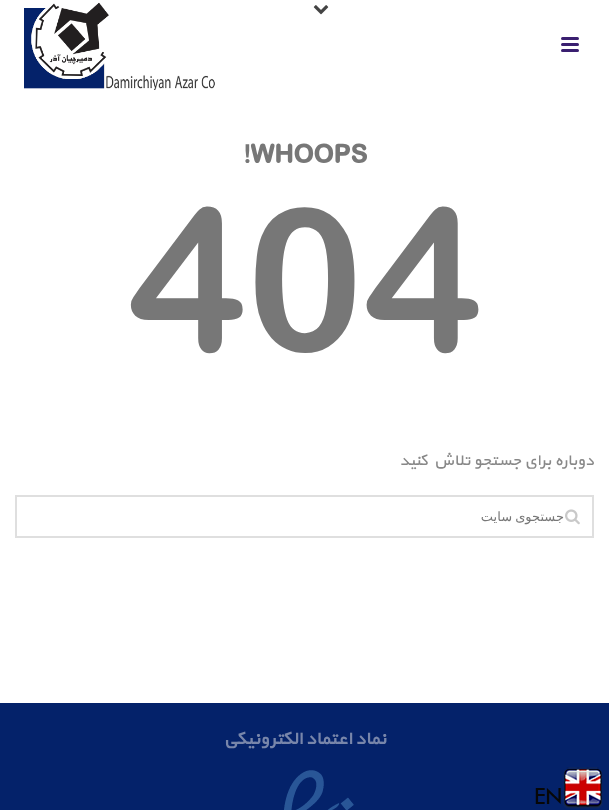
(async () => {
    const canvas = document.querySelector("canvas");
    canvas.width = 609;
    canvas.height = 810;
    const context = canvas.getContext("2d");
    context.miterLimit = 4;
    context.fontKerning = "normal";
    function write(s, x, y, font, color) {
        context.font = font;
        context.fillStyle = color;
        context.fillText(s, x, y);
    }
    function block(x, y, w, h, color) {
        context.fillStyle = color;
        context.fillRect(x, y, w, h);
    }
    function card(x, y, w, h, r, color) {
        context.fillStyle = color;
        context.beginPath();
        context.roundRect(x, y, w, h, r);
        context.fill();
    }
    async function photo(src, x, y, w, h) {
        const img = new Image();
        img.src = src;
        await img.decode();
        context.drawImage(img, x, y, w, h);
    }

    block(0, 0, 609, 810, "rgb(4, 34, 106)");
    block(0, 0, 609, 703, "rgb(255, 255, 255)");
    card(561, 37, 18, 3, 1.5, "rgb(58, 31, 112)");
    card(561, 43, 18, 3, 1.5, "rgb(58, 31, 112)");
    card(561, 49, 18, 3, 1.5, "rgb(58, 31, 112)");
    await photo("media/1.png", 24, 2, 191, 88);
    await photo("media/2.png", 313, 5, 16, 10);
    write("!WHOOPS", 241, 163, "bold 28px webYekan", "rgb(119, 119, 119)");
    write("404", 128, 353, "220px webYekan", "rgb(119, 119, 119)");
    context.direction = "rtl";
    write("دوباره برای جستجو تلاش کنید", 594, 465, "16px webYekan", "rgb(136, 136, 136)");
    context.strokeStyle = "rgb(223, 223, 223)";
    context.lineWidth = 2;
    context.strokeRect(16, 496, 577, 41);
    await photo("media/3.png", 565, 509, 15, 16);
    context.wordSpacing = "-1px";
    write("جستجوی سایت", 564, 521, "13px DejaVu Sans", "rgb(119, 119, 119)");
    context.wordSpacing = "0px";
    write("نماد اعتماد الکترونیکی", 386, 744, "bold 18px webYekan", "rgb(120, 134, 170)");
    await photo("media/4.png", 284, 770, 70, 40);
    await photo("media/5.png", 535, 767, 68, 42);
})();
